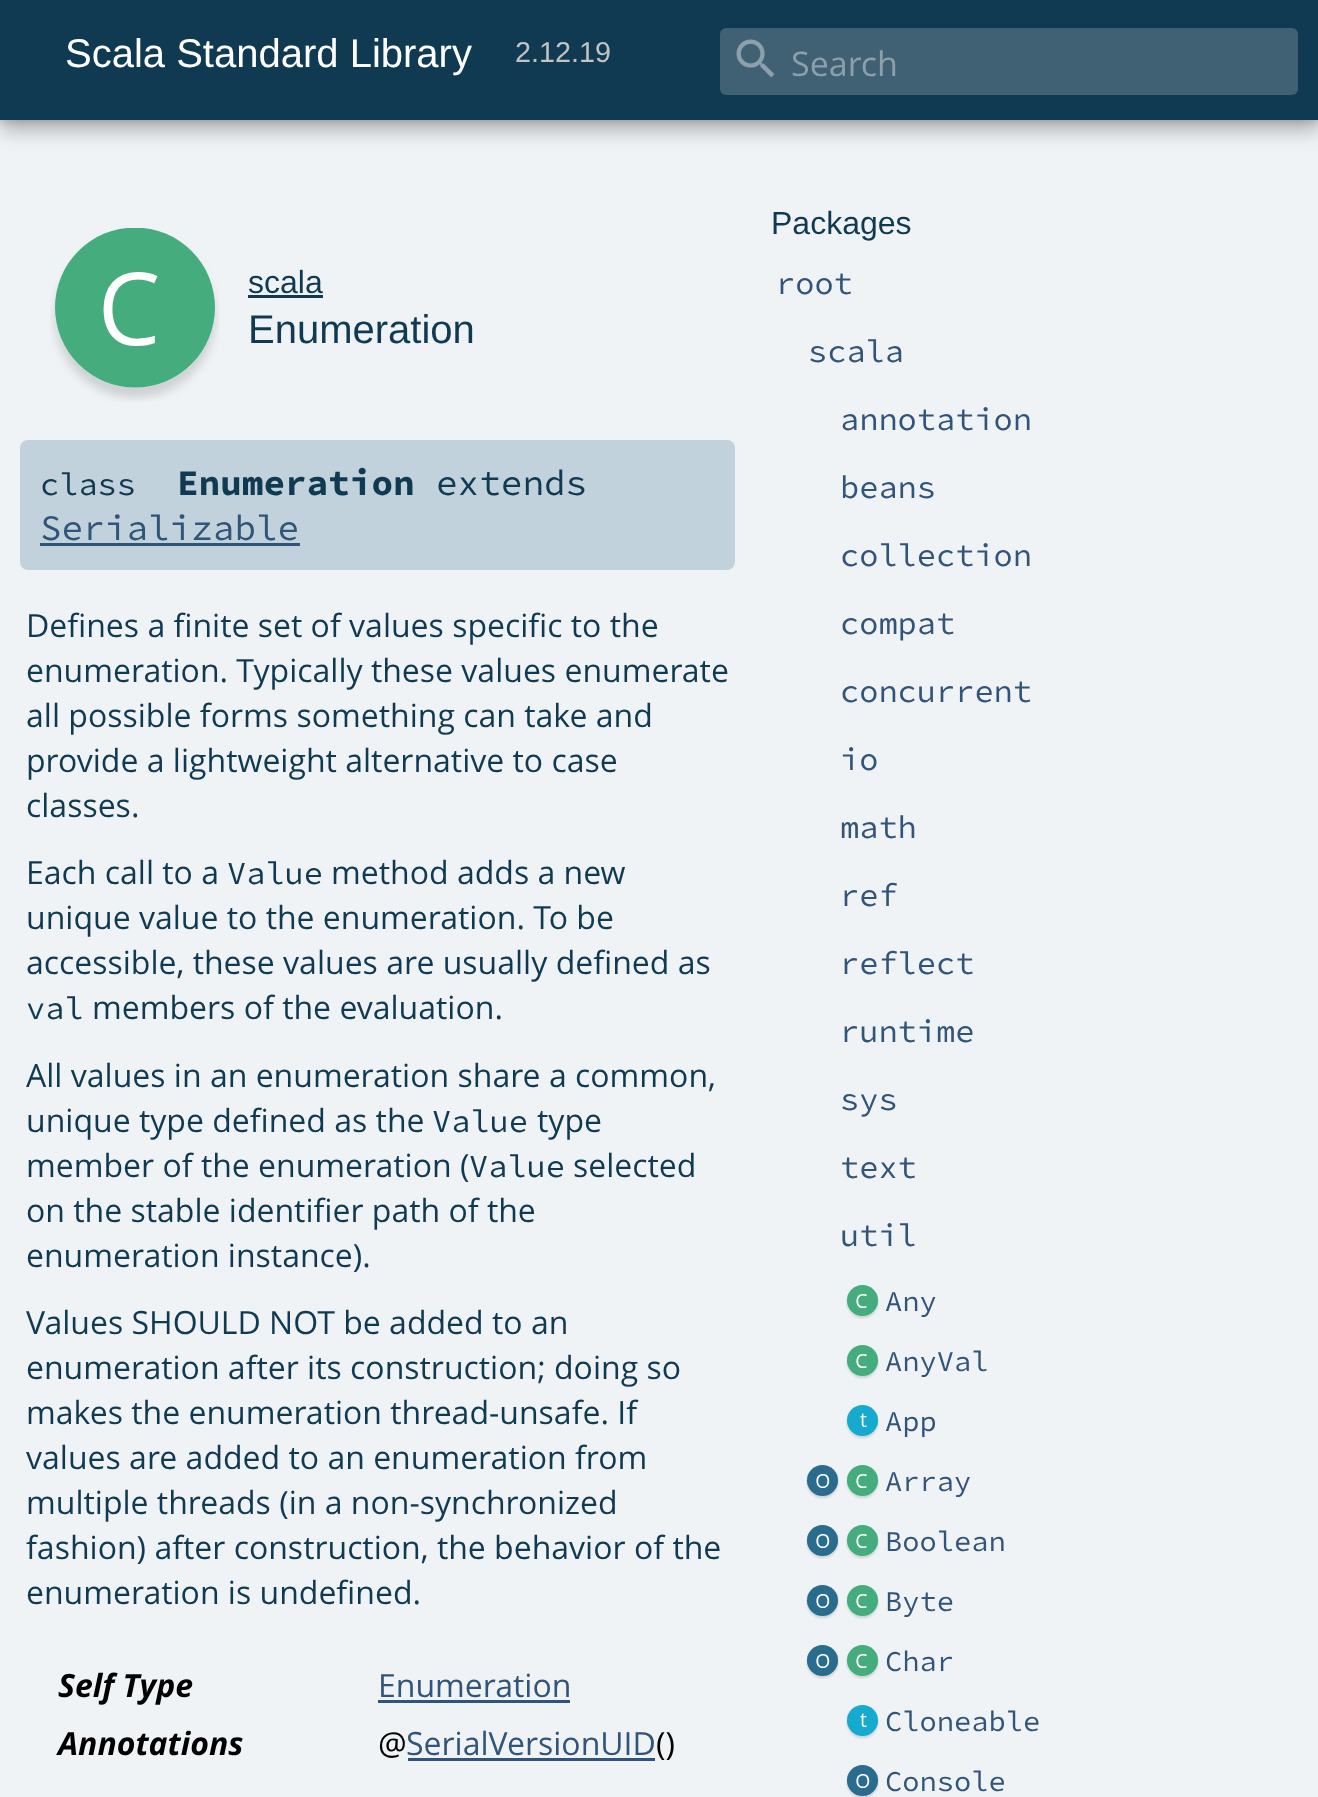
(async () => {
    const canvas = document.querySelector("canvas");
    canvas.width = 1318;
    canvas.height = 1797;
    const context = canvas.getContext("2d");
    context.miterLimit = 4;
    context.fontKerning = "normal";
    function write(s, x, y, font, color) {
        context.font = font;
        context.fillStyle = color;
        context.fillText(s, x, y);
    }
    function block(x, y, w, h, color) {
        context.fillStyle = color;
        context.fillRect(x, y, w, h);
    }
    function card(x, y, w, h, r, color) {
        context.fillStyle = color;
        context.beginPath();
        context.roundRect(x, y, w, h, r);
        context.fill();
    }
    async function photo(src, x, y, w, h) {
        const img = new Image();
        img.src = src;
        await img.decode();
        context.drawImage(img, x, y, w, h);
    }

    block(0, 0, 1318, 1797, "rgb(240, 243, 246)");
    context.fillStyle = "rgba(0, 0, 0, 0.28)";
    context.filter = "blur(10px)";
    context.beginPath();
    context.rect(0, 10, 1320, 120);
    context.fill();
    context.filter = "none";
    context.fillStyle = "rgba(0, 0, 0, 0.18)";
    context.filter = "blur(5px)";
    context.beginPath();
    context.rect(0, 0, 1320, 120);
    context.fill();
    context.filter = "none";
    block(0, 0, 1318, 120, "rgb(16, 58, 81)");
    write("Scala Standard Library", 65, 67, "40px Liberation Sans", "rgb(255, 255, 255)");
    write("2.12.19", 515, 62, "28.75px Liberation Sans", "rgb(194, 194, 194)");
    card(720, 28, 578, 67, 6, "rgb(64, 97, 116)");
    await photo("media/1.png", 736, 39, 39, 39);
    write("Search", 791, 76, "34px Open Sans", "rgb(140, 160, 172)");
    await photo("media/2.png", 50, 228, 170, 174);
    write("scala", 248, 293, "32px Liberation Sans", "rgb(16, 58, 81)");
    block(248, 295, 75, 3, "rgb(16, 58, 81)");
    write("Enumeration", 248, 343, "40px Liberation Sans", "rgb(16, 58, 81)");
    card(20, 440, 715, 130, 8, "rgb(194, 210, 220)");
    write("Enumeration", 177, 495, "bold 36px Source Code Pro", "rgb(16, 58, 81)");
    write("extends", 436, 495, "36px Source Code Pro", "rgb(16, 58, 81)");
    write("Serializable", 40, 540, "36px Source Code Pro", "rgb(49, 84, 121)");
    block(40, 543, 260, 3, "rgb(49, 84, 121)");
    write("class", 40, 495, "32px Source Code Pro", "rgb(16, 58, 81)");
    write("Defines a finite set of values specific to the", 26, 637, "32px Open Sans", "rgb(16, 58, 81)");
    write("enumeration. Typically these values enumerate", 26, 682, "32px Open Sans", "rgb(16, 58, 81)");
    write("all possible forms something can take and", 26, 727, "32px Open Sans", "rgb(16, 58, 81)");
    write("provide a lightweight alternative to case", 26, 772, "32px Open Sans", "rgb(16, 58, 81)");
    write("classes.", 26, 817, "32px Open Sans", "rgb(16, 58, 81)");
    write("Each call to a", 26, 884, "32px Open Sans", "rgb(16, 58, 81)");
    write("Value", 227, 884, "32px Source Code Pro", "rgb(16, 58, 81)");
    write("method adds a new", 331, 884, "32px Open Sans", "rgb(16, 58, 81)");
    write("unique value to the enumeration. To be", 26, 929, "32px Open Sans", "rgb(16, 58, 81)");
    write("accessible, these values are usually defined as", 26, 974, "32px Open Sans", "rgb(16, 58, 81)");
    write("val", 26, 1019, "32px Source Code Pro", "rgb(16, 58, 81)");
    write("members of the evaluation.", 92, 1019, "32px Open Sans", "rgb(16, 58, 81)");
    write("All values in an enumeration share a common,", 26, 1087, "32px Open Sans", "rgb(16, 58, 81)");
    write("unique type defined as the", 26, 1132, "32px Open Sans", "rgb(16, 58, 81)");
    write("Value", 432, 1132, "32px Source Code Pro", "rgb(16, 58, 81)");
    write("type", 537, 1132, "32px Open Sans", "rgb(16, 58, 81)");
    write("member of the enumeration (", 26, 1177, "32px Open Sans", "rgb(16, 58, 81)");
    write("Value", 469, 1177, "32px Source Code Pro", "rgb(16, 58, 81)");
    write("selected", 573, 1177, "32px Open Sans", "rgb(16, 58, 81)");
    write("on the stable identifier path of the", 26, 1222, "32px Open Sans", "rgb(16, 58, 81)");
    write("enumeration instance).", 26, 1267, "32px Open Sans", "rgb(16, 58, 81)");
    write("Values SHOULD NOT be added to an", 26, 1334, "32px Open Sans", "rgb(16, 58, 81)");
    write("enumeration after its construction; doing so", 26, 1379, "32px Open Sans", "rgb(16, 58, 81)");
    write("makes the enumeration thread-unsafe. If", 26, 1424, "32px Open Sans", "rgb(16, 58, 81)");
    write("values are added to an enumeration from", 26, 1469, "32px Open Sans", "rgb(16, 58, 81)");
    write("multiple threads (in a non-synchronized", 26, 1514, "32px Open Sans", "rgb(16, 58, 81)");
    write("fashion) after construction, the behavior of the", 26, 1559, "32px Open Sans", "rgb(16, 58, 81)");
    write("enumeration is undefined.", 26, 1604, "32px Open Sans", "rgb(16, 58, 81)");
    write("Self Type", 58, 1697, "italic bold 32px Open Sans", "rgb(0, 0, 0)");
    write("Enumeration", 378, 1697, "32px Open Sans", "rgb(49, 84, 121)");
    block(378, 1700, 192, 3, "rgb(49, 84, 121)");
    write("Annotations", 58, 1755, "italic bold 32px Open Sans", "rgb(0, 0, 0)");
    write("@", 378, 1755, "32px Open Sans", "rgb(0, 0, 0)");
    block(408, 1758, 247, 3, "rgb(49, 84, 121)");
    write("SerialVersionUID", 406, 1755, "32px Open Sans", "rgb(49, 84, 121)");
    write("()", 656, 1755, "32px Open Sans", "rgb(0, 0, 0)");
    write("Packages", 771, 234, "32px Liberation Sans", "rgb(16, 58, 81)");
    write("root", 776, 294, "32px Source Code Pro", "rgb(49, 84, 121)");
    write("scala", 808, 362, "32px Source Code Pro", "rgb(49, 84, 121)");
    write("annotation", 840, 430, "32px Source Code Pro", "rgb(49, 84, 121)");
    write("beans", 840, 498, "32px Source Code Pro", "rgb(49, 84, 121)");
    write("collection", 840, 566, "32px Source Code Pro", "rgb(49, 84, 121)");
    write("compat", 840, 634, "32px Source Code Pro", "rgb(49, 84, 121)");
    write("concurrent", 840, 702, "32px Source Code Pro", "rgb(49, 84, 121)");
    write("io", 840, 770, "32px Source Code Pro", "rgb(49, 84, 121)");
    write("math", 840, 838, "32px Source Code Pro", "rgb(49, 84, 121)");
    write("ref", 840, 906, "32px Source Code Pro", "rgb(49, 84, 121)");
    write("reflect", 840, 974, "32px Source Code Pro", "rgb(49, 84, 121)");
    write("runtime", 840, 1042, "32px Source Code Pro", "rgb(49, 84, 121)");
    write("sys", 840, 1110, "32px Source Code Pro", "rgb(49, 84, 121)");
    write("text", 840, 1178, "32px Source Code Pro", "rgb(49, 84, 121)");
    write("util", 840, 1246, "32px Source Code Pro", "rgb(49, 84, 121)");
    await photo("media/3.png", 846, 1285, 33, 34);
    write("Any", 885, 1311, "28.75px Source Code Pro", "rgb(49, 84, 121)");
    await photo("media/3.png", 846, 1345, 33, 34);
    write("AnyVal", 885, 1371, "28.75px Source Code Pro", "rgb(49, 84, 121)");
    await photo("media/4.png", 846, 1405, 33, 34);
    write("App", 885, 1431, "28.75px Source Code Pro", "rgb(49, 84, 121)");
    await photo("media/5.png", 806, 1465, 33, 34);
    await photo("media/3.png", 846, 1465, 33, 34);
    write("Array", 885, 1491, "28.75px Source Code Pro", "rgb(49, 84, 121)");
    await photo("media/5.png", 806, 1525, 33, 34);
    await photo("media/3.png", 846, 1525, 33, 34);
    write("Boolean", 885, 1551, "28.75px Source Code Pro", "rgb(49, 84, 121)");
    await photo("media/5.png", 806, 1585, 33, 34);
    await photo("media/3.png", 846, 1585, 33, 34);
    write("Byte", 885, 1611, "28.75px Source Code Pro", "rgb(49, 84, 121)");
    await photo("media/5.png", 806, 1645, 33, 34);
    await photo("media/3.png", 846, 1645, 33, 34);
    write("Char", 885, 1671, "28.75px Source Code Pro", "rgb(49, 84, 121)");
    await photo("media/4.png", 846, 1705, 33, 34);
    write("Cloneable", 885, 1731, "28.75px Source Code Pro", "rgb(49, 84, 121)");
    await photo("media/6.png", 846, 1765, 33, 32);
    write("Console", 885, 1791, "28.75px Source Code Pro", "rgb(49, 84, 121)");
})();
